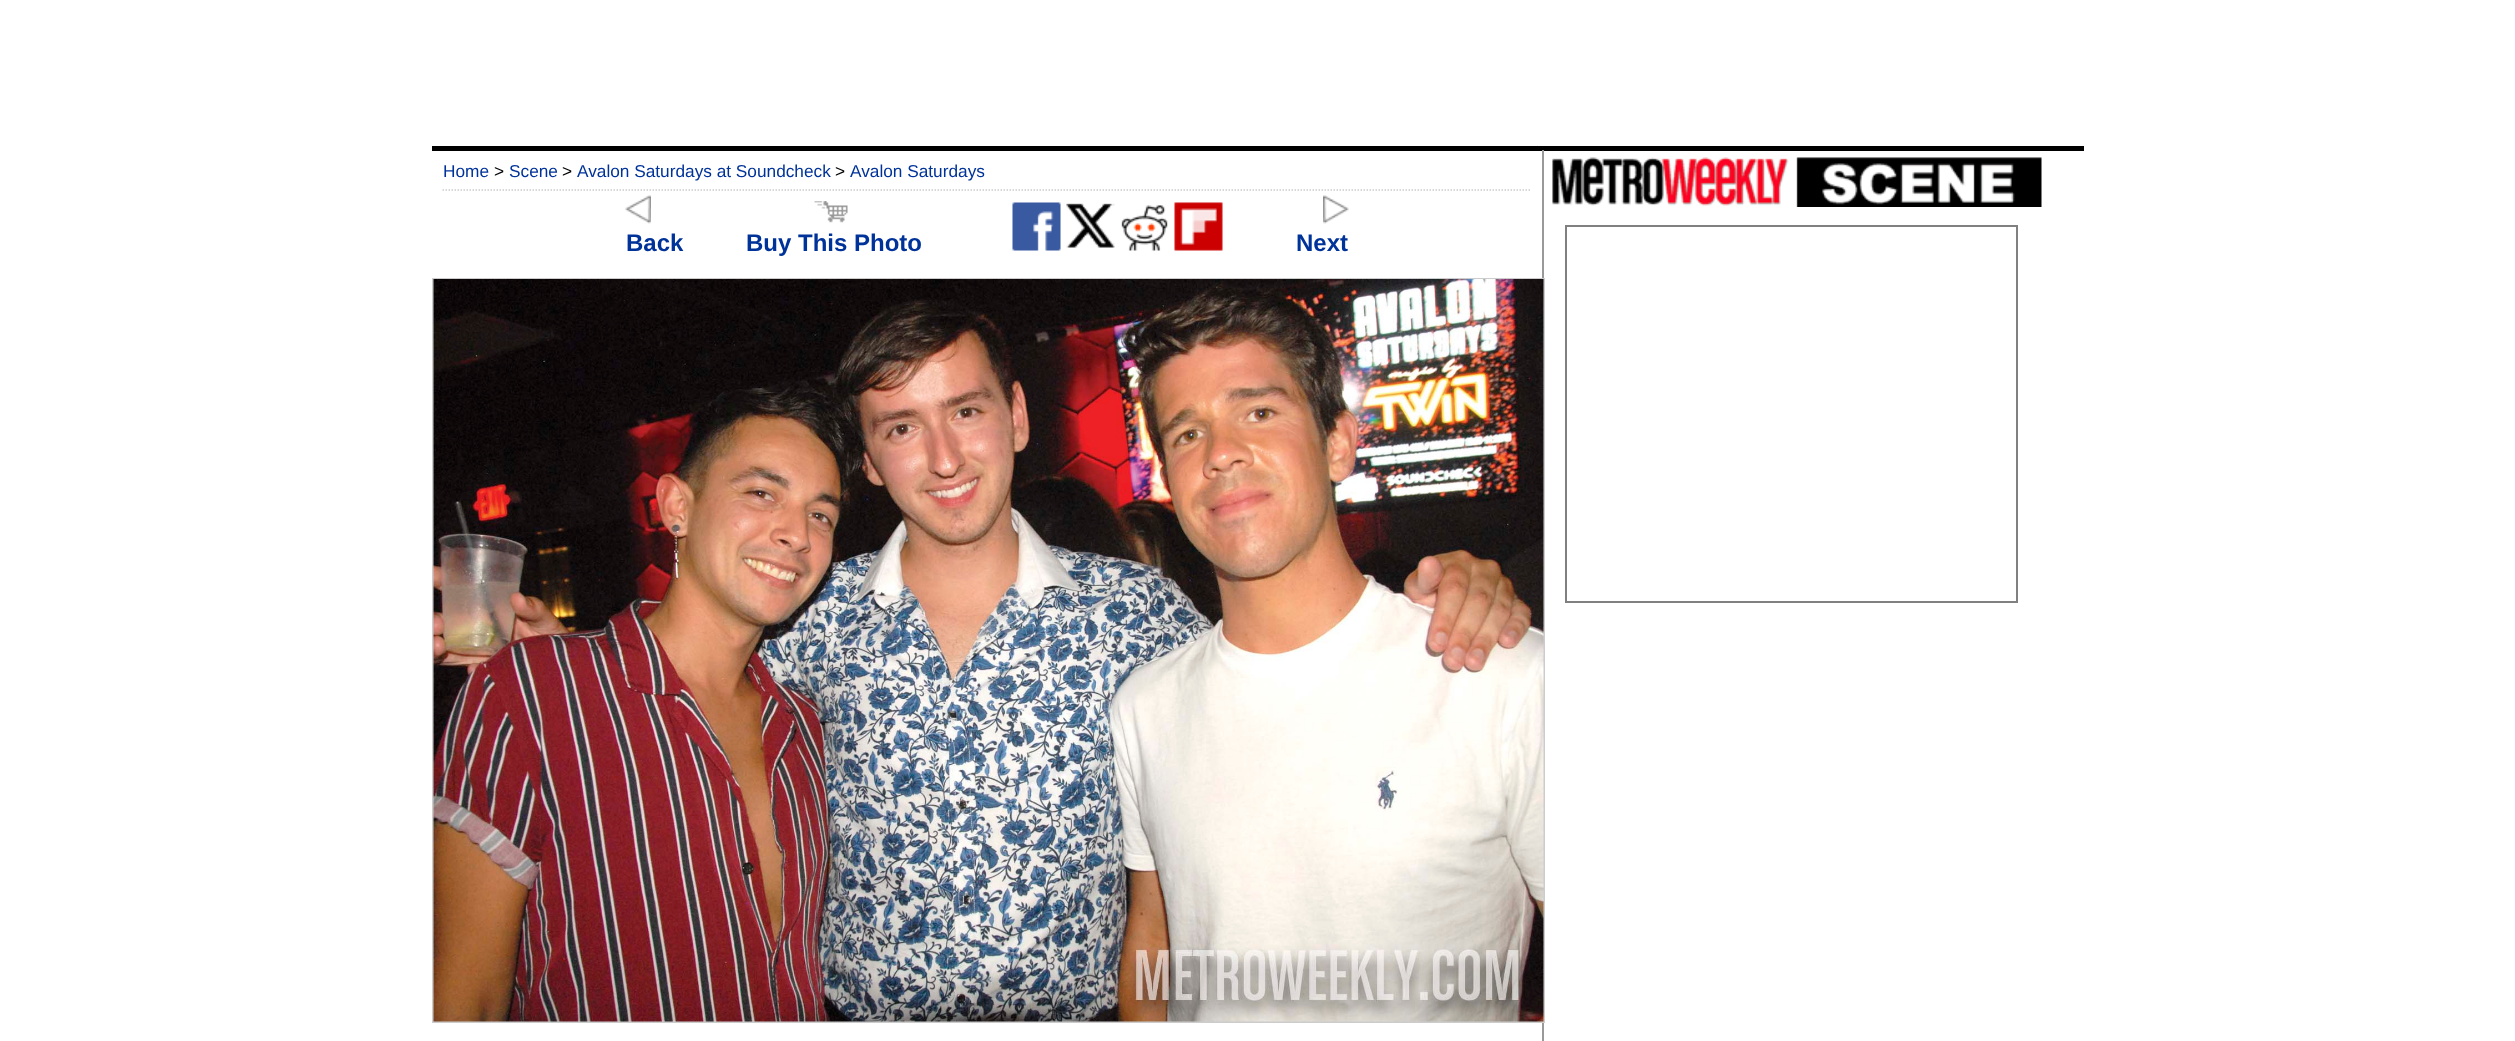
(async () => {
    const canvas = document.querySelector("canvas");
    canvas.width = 2515;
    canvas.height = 1041;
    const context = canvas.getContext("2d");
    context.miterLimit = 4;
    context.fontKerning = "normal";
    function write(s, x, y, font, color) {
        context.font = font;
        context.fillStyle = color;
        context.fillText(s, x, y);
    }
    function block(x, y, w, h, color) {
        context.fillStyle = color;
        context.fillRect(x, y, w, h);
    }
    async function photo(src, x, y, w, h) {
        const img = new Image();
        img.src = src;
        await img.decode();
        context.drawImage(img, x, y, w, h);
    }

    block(0, 0, 2515, 1041, "rgb(255, 255, 255)");
    block(432, 146, 1652, 5, "rgb(0, 0, 0)");
    block(1542, 150, 2, 891, "rgb(153, 153, 153)");
    context.beginPath();
    context.moveTo(442.5, 190);
    context.lineTo(1531.5, 190);
    context.strokeStyle = "rgb(204, 204, 204)";
    context.lineWidth = 1.5;
    context.setLineDash([1.5, 1.5]);
    context.stroke();
    write("Home", 443, 177, "17.25px Liberation Sans", "rgb(0, 51, 153)");
    write(">", 494, 177, "17.25px Liberation Sans", "rgb(0, 0, 0)");
    write("Scene", 509, 177, "17.25px Liberation Sans", "rgb(0, 51, 153)");
    write(">", 562, 177, "17.25px Liberation Sans", "rgb(0, 0, 0)");
    write("Avalon Saturdays at Soundcheck", 577, 177, "17.25px Liberation Sans", "rgb(0, 51, 153)");
    write(">", 835, 177, "17.25px Liberation Sans", "rgb(0, 0, 0)");
    write("Avalon Saturdays", 850, 177, "17.25px Liberation Sans", "rgb(0, 51, 153)");
    await photo("media/1.png", 625, 195, 26, 29);
    write("Back", 626, 251, "bold 24px Liberation Sans", "rgb(0, 51, 153)");
    await photo("media/2.png", 814, 201, 34, 22);
    write("Buy This Photo", 746, 251, "bold 24px Liberation Sans", "rgb(0, 51, 153)");
    await photo("media/3.png", 1012, 202, 49, 49);
    await photo("media/4.png", 1066, 203, 49, 45);
    await photo("media/5.png", 1121, 205, 47, 46);
    await photo("media/6.png", 1174, 202, 49, 49);
    await photo("media/7.png", 1323, 195, 26, 29);
    write("Next", 1296, 251, "bold 24px Liberation Sans", "rgb(0, 51, 153)");
    context.lineWidth = 2;
    context.setLineDash([]);
    context.strokeRect(433, 279, 1111, 743);
    await photo("media/8.png", 433, 279, 1111, 743);
    await photo("media/9.png", 1552, 157, 490, 50);
    context.strokeStyle = "rgb(128, 128, 128)";
    context.strokeRect(1566, 226, 451, 376);
})();
